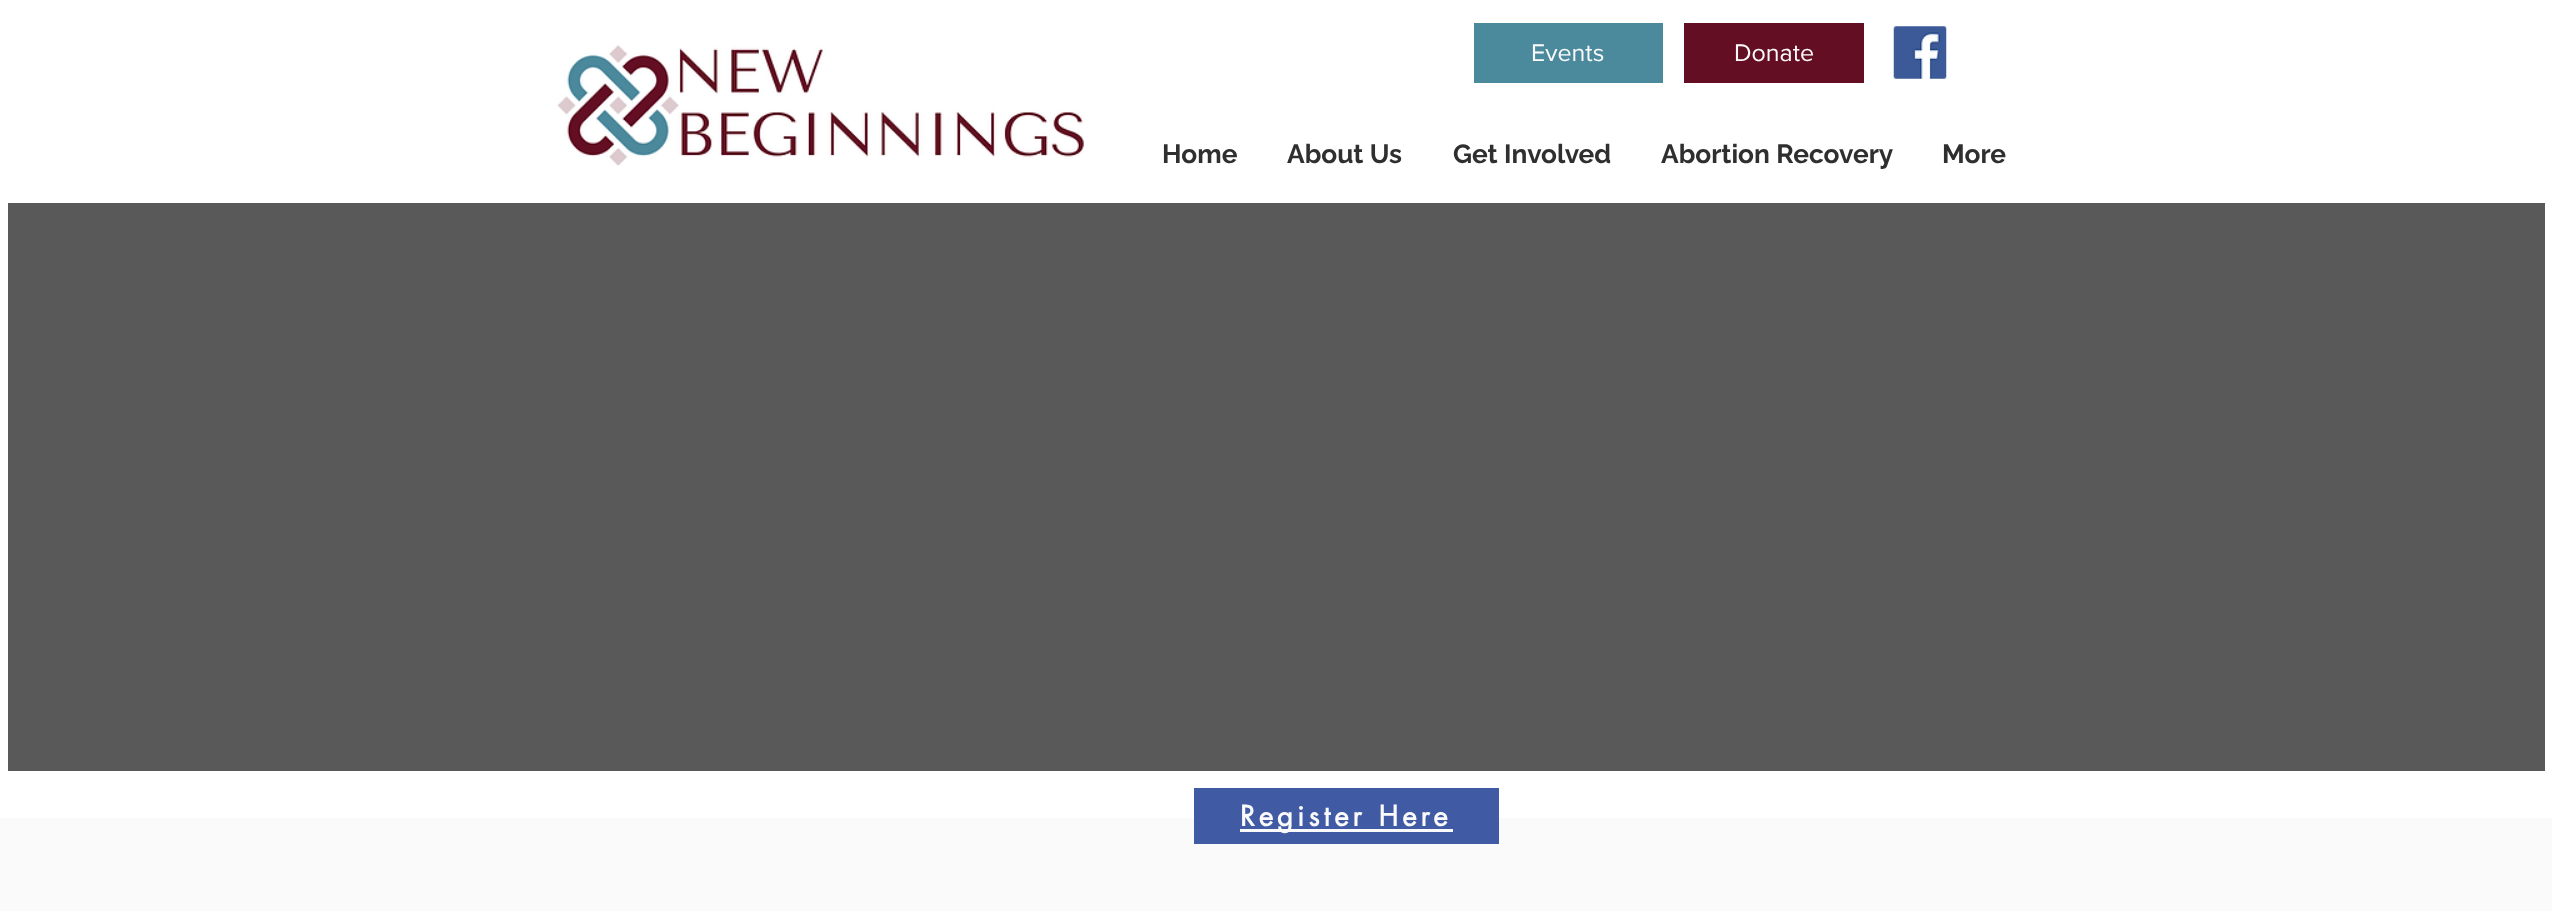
(async () => {
    const canvas = document.querySelector("canvas");
    canvas.width = 2552;
    canvas.height = 911;
    const context = canvas.getContext("2d");
    context.miterLimit = 4;
    context.fontKerning = "normal";
    function write(s, x, y, font, color) {
        context.font = font;
        context.fillStyle = color;
        context.fillText(s, x, y);
    }
    function block(x, y, w, h, color) {
        context.fillStyle = color;
        context.fillRect(x, y, w, h);
    }
    async function photo(src, x, y, w, h) {
        const img = new Image();
        img.src = src;
        await img.decode();
        context.drawImage(img, x, y, w, h);
    }

    block(0, 0, 2552, 911, "rgb(255, 255, 255)");
    await photo("media/1.png", 557, 45, 527, 121);
    block(1474, 23, 189, 60, "rgb(75, 137, 157)");
    write("Events", 1531, 61, "25px 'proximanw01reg'", "rgb(250, 250, 250)");
    block(1684, 23, 180, 60, "rgb(100, 14, 35)");
    write("Donate", 1734, 61, "25px 'proximanw01reg'", "rgb(250, 250, 250)");
    await photo("media/2.png", 1893, 26, 54, 53);
    write("Home", 1162, 163, "bold 26.25px Raleway", "rgb(47, 47, 48)");
    write("About Us", 1287, 163, "bold 26.25px Raleway", "rgb(47, 47, 48)");
    write("Get Involved", 1453, 163, "bold 26.25px Raleway", "rgb(47, 47, 48)");
    write("Abortion Recovery", 1661, 163, "bold 26.25px Raleway", "rgb(47, 47, 48)");
    write("More", 1942, 163, "bold 26.25px Raleway", "rgb(47, 47, 48)");
    block(8, 203, 2537, 568, "rgb(89, 89, 90)");
    block(0, 818, 2552, 93, "rgb(250, 250, 250)");
    block(1194, 788, 305, 56, "rgb(65, 90, 164)");
    block(1240, 829, 213, 3, "rgb(250, 250, 250)");
    context.letterSpacing = "4.1px";
    write("Register Here", 1240, 826, "bold 27.5px futura", "rgb(250, 250, 250)");
})();
